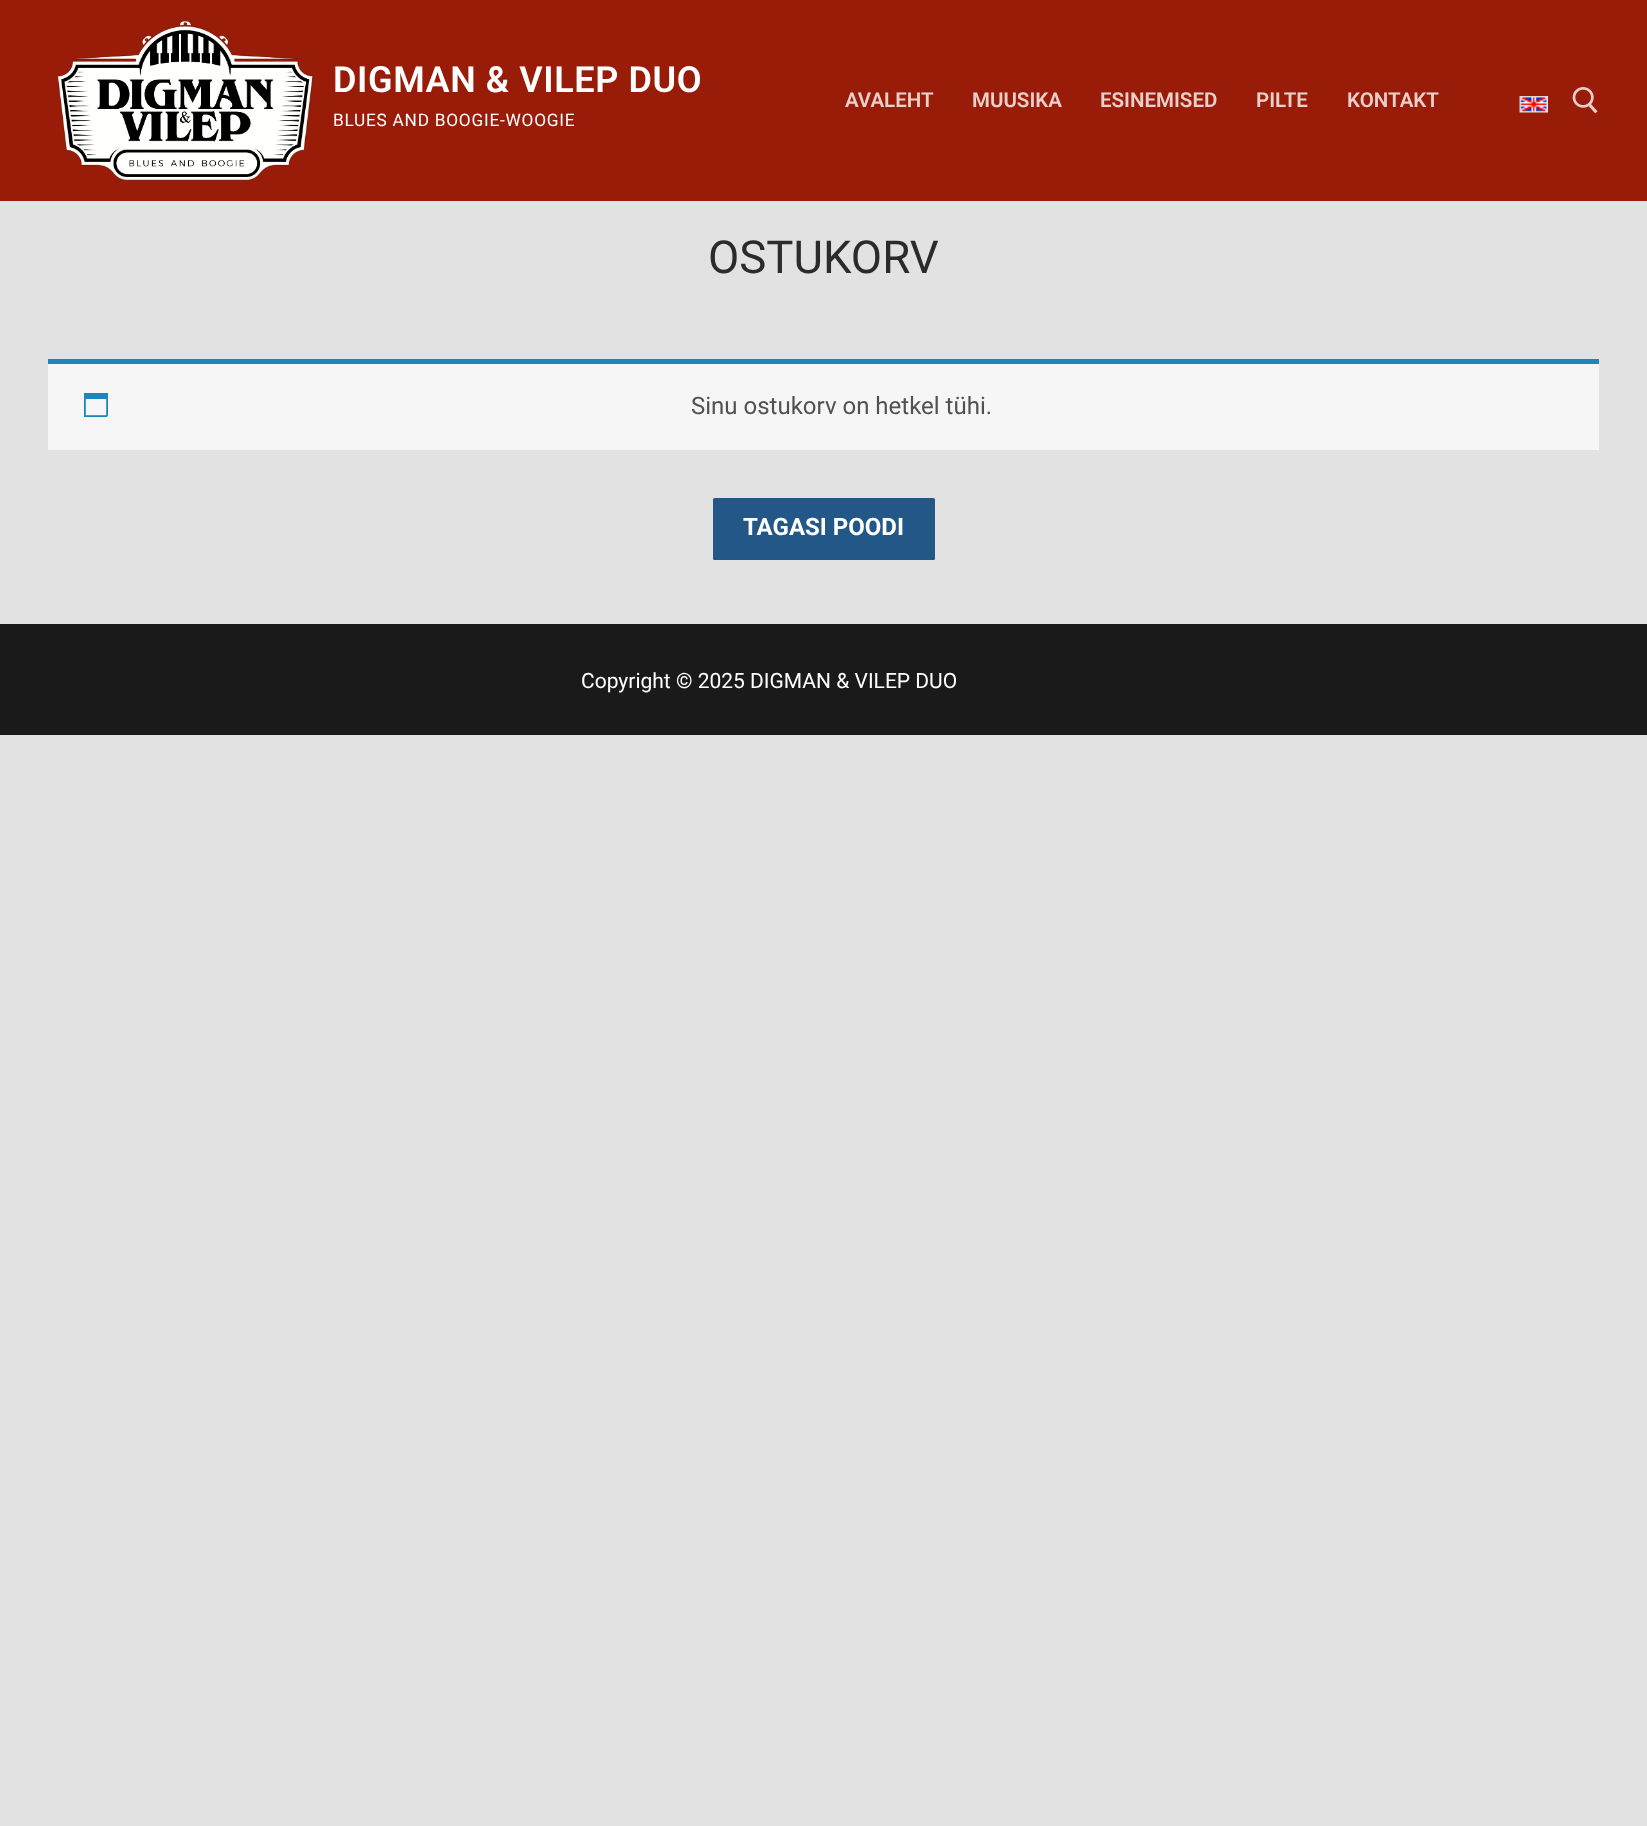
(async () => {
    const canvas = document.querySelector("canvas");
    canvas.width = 1647;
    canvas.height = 1826;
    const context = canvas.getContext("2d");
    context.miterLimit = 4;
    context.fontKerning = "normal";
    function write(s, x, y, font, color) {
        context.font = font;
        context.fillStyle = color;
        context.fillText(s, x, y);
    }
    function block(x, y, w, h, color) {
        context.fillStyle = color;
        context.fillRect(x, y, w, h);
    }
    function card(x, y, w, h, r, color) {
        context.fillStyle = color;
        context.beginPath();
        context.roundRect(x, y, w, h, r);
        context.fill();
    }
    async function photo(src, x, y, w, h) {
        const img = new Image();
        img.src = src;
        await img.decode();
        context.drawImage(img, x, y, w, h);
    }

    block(0, 0, 1647, 1826, "rgb(226, 226, 226)");
    block(0, 0, 1647, 201, "rgb(153, 28, 9)");
    await photo("media/1.png", 57, 20, 256, 161);
    context.letterSpacing = "0.6px";
    write("DIGMAN & VILEP DUO", 333, 92, "600 36px Roboto", "rgb(255, 255, 255)");
    context.letterSpacing = "0.75px";
    write("BLUES AND BOOGIE-WOOGIE", 333, 126, "17.25px Roboto", "rgb(255, 255, 255)");
    context.letterSpacing = "0px";
    write("AVALEHT", 845, 107, "600 20.5px Roboto", "rgb(234, 207, 203)");
    write("MUUSIKA", 972, 107, "600 20.5px Roboto", "rgb(234, 207, 203)");
    write("ESINEMISED", 1100, 107, "600 20.5px Roboto", "rgb(234, 207, 203)");
    write("PILTE", 1256, 107, "600 20.5px Roboto", "rgb(234, 207, 203)");
    write("KONTAKT", 1347, 107, "600 20.5px Roboto", "rgb(234, 207, 203)");
    await photo("media/2.png", 1519, 96, 29, 17);
    await photo("media/3.png", 1572, 87, 26, 27);
    write("OSTUKORV", 708, 273, "45.5px Roboto", "rgb(43, 43, 43)");
    block(48, 364, 1551, 86, "rgb(247, 246, 247)");
    block(48, 359, 1551, 5, "rgb(30, 133, 190)");
    await photo("media/4.png", 84, 393, 24, 24);
    write("Sinu ostukorv on hetkel tühi.", 691, 414, "24px Roboto", "rgb(81, 81, 81)");
    card(713, 498, 222, 62, 1.5, "rgb(35, 87, 135)");
    write("TAGASI POODI", 743, 535, "bold 24px Roboto", "rgb(255, 255, 255)");
    block(0, 624, 1647, 111, "rgb(26, 26, 26)");
    write("Copyright © 2025 DIGMAN & VILEP DUO", 581, 688, "21px Roboto", "rgb(255, 255, 255)");
})();
